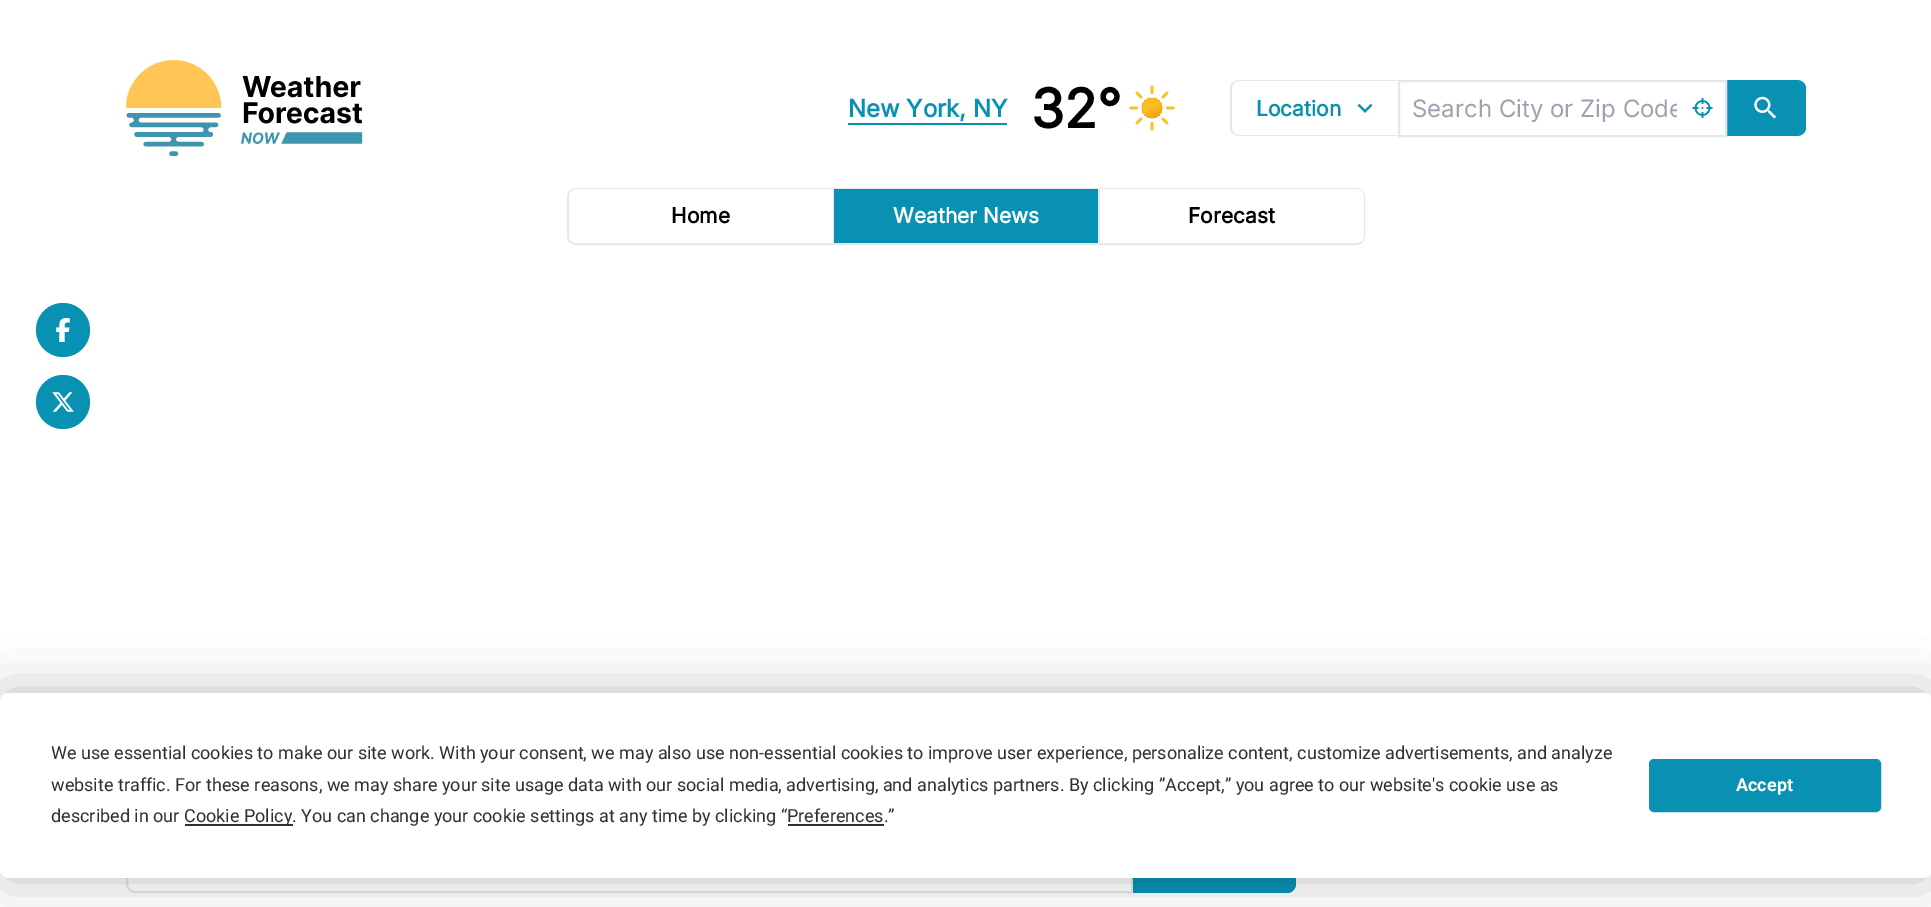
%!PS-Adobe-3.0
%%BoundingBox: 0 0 1931 907
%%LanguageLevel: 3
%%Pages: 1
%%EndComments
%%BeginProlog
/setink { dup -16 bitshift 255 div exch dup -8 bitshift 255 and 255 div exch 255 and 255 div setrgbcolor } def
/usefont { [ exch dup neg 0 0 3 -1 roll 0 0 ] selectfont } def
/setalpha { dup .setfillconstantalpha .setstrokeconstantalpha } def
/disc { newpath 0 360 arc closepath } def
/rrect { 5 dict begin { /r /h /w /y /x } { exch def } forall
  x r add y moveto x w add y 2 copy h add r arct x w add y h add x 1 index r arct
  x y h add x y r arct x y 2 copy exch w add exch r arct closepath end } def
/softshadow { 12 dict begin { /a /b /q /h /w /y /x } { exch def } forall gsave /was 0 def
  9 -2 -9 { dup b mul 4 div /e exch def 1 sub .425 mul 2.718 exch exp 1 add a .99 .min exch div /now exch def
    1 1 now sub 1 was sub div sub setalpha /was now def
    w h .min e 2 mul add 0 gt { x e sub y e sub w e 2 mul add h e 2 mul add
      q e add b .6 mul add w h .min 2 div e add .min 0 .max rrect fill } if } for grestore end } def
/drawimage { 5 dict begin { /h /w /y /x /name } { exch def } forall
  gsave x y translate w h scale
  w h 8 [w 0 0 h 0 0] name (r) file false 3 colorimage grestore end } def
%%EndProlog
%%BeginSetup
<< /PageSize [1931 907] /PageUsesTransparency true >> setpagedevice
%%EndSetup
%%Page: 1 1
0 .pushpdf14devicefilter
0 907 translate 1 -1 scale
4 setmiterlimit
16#FFFFFF setink
0 0 1931 907 rectfill
(img1.raw) 126 60 237 97 drawimage
/Inter-Bold 24 usefont
16#0891B2 setink
848 117 moveto (New York, NY) show
848 123 159 2 rectfill
/Inter-Bold 54 usefont
16#000000 setink
1031 128 moveto (32°) show
gsave 1152 108 10 disc clip newpath
<< /ShadingType 2 /ColorSpace /DeviceRGB /Coords [1147 99 1157 117] /Extend [true true] /Function << /FunctionType 3 /Domain [0 1] /Functions [<< /FunctionType 2 /Domain [0 1] /C0 [0.984 0.749 0.141] /C1 [0.984 0.749 0.141] /N 1 >> << /FunctionType 2 /Domain [0 1] /C0 [0.984 0.749 0.141] /C1 [0.961 0.62 0.043] /N 1 >>] /Bounds [0.45] /Encode [0 1 0 1] >> >> shfill grestore
16#F8AF18 setink
0.5 setlinewidth
1152 108 10 disc stroke
16#FBBF24 setink
2.8 setlinewidth
1 setlinecap
1152 92.5 moveto 1152 87 lineto 1152 129 moveto 1152 123.5 lineto 1163 97 moveto 1167 93 lineto 1137 123 moveto 1141 119 lineto 1141 97 moveto 1137 93 lineto 1167 123 moveto 1163 119 lineto 1136.5 108 moveto 1131 108 lineto 1173 108 moveto 1167.5 108 lineto stroke
16#E5E7EB setink
1239 80 moveto 1398 80 lineto 1398 136 lineto 1239 136 lineto 1234 136 1230 132 1230 128 curveto 1230 88 lineto 1230 84 1234 80 1239 80 curveto closepath 1239 81 moveto 1398 81 lineto 1398 135 lineto 1239 135 lineto 1235 135 1232 132 1232 128 curveto 1232 88 lineto 1232 84 1235 81 1239 81 curveto closepath eofill
/Inter-Bold 21 usefont
16#0891B2 setink
1256 116 moveto (Location) show
(img2.raw) 1357 103 16 10 drawimage
1727 81 moveto 1797 81 lineto 1801.5 81 1805 84.5 1805 89 curveto 1805 127 lineto 1805 131.5 1801.5 135 1797 135 curveto 1727 135 lineto closepath fill
1726 80 moveto 1797 80 lineto 1802 80 1806 84 1806 88 curveto 1806 128 lineto 1806 132 1802 136 1797 136 curveto 1726 136 lineto closepath 1726 81 moveto 1797 81 lineto 1801 81 1804 84 1804 88 curveto 1804 128 lineto 1804 132 1801 135 1797 135 curveto 1726 135 lineto closepath eofill
16#E5E7EB setink
2 setlinewidth
0 setlinecap
1399 81 327 55 rectstroke
gsave
1412 93 265 30 rectclip
/Inter-Regular 24 usefont
16#9CA3AF setink
1412 117 moveto (Search City or Zip Code) show
grestore
(img3.raw) 1692 98 21 20 drawimage
(img4.raw) 1754 96 22 23 drawimage
568 189 796 55 8 rrect stroke
16#FFFFFF setink
577 189 moveto 833 189 lineto 833 243 lineto 577 243 lineto 572.5 243 569 239.5 569 235 curveto 569 197 lineto 569 192.5 572.5 189 577 189 curveto closepath fill
16#000000 setink
671 223 moveto (Home) show
16#E5E7EB setink
833 189 1 54 rectfill
16#0891B2 setink
834 189 264 54 rectfill
16#FFFFFF setink
893 223 moveto (Weather News) show
16#E5E7EB setink
1098 189 2 54 rectfill
16#FFFFFF setink
1100 189 moveto 1356 189 lineto 1360.5 189 1364 192.5 1364 197 curveto 1364 235 lineto 1364 239.5 1360.5 243 1356 243 curveto 1100 243 lineto closepath fill
16#000000 setink
1188 223 moveto (Forecast) show
16#0891B2 setink
63 330 27 disc fill
(img5.raw) 56 318 14 24 drawimage
63 402 27 disc fill
(img6.raw) 52 392 22 20 drawimage
16#E5E7EB setink
135 834 moveto 1132 834 lineto 1132 892 lineto 135 892 lineto 130.5 892 127 888.5 127 884 curveto 127 842 lineto 127 837.5 130.5 834 135 834 curveto closepath stroke
16#0891B2 setink
1133 833 moveto 1287 833 lineto 1292 833 1296 837 1296 842 curveto 1296 884 lineto 1296 889 1292 893 1287 893 curveto 1133 893 lineto closepath fill
16#000000 setink
0 693 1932 185 8 26 0.25 softshadow
16#FFFFFF setink
0 693 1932 185 8 rrect fill
/Roboto-Regular 18 usefont
16#303030 setink
[
    [(We use essential cookies to make our site work. With your consent, we may also use non-essential cookies to improve user experience, personalize content, customize advertisements, and analyze) 51 759]
    [(website traffic. For these reasons, we may share your site usage data with our social media, advertising, and analytics partners. By clicking ”Accept,” you agree to our website's cookie use as) 51 791]
    [(described in our) 51 822]
] { aload pop moveto show } forall
185 824 108 2 rectfill
184 822 moveto (Cookie Policy. You can change your cookie settings at any time by clicking “Preferences.”) show
788 824 96 2 rectfill
16#0891B2 setink
1650 760 230 51 4 rrect gsave fill grestore
stroke
/Roboto-Bold 18 usefont
16#FFFFFF setink
1736 791 moveto (Accept) show
.poppdf14devicefilter showpage
%%EOF
